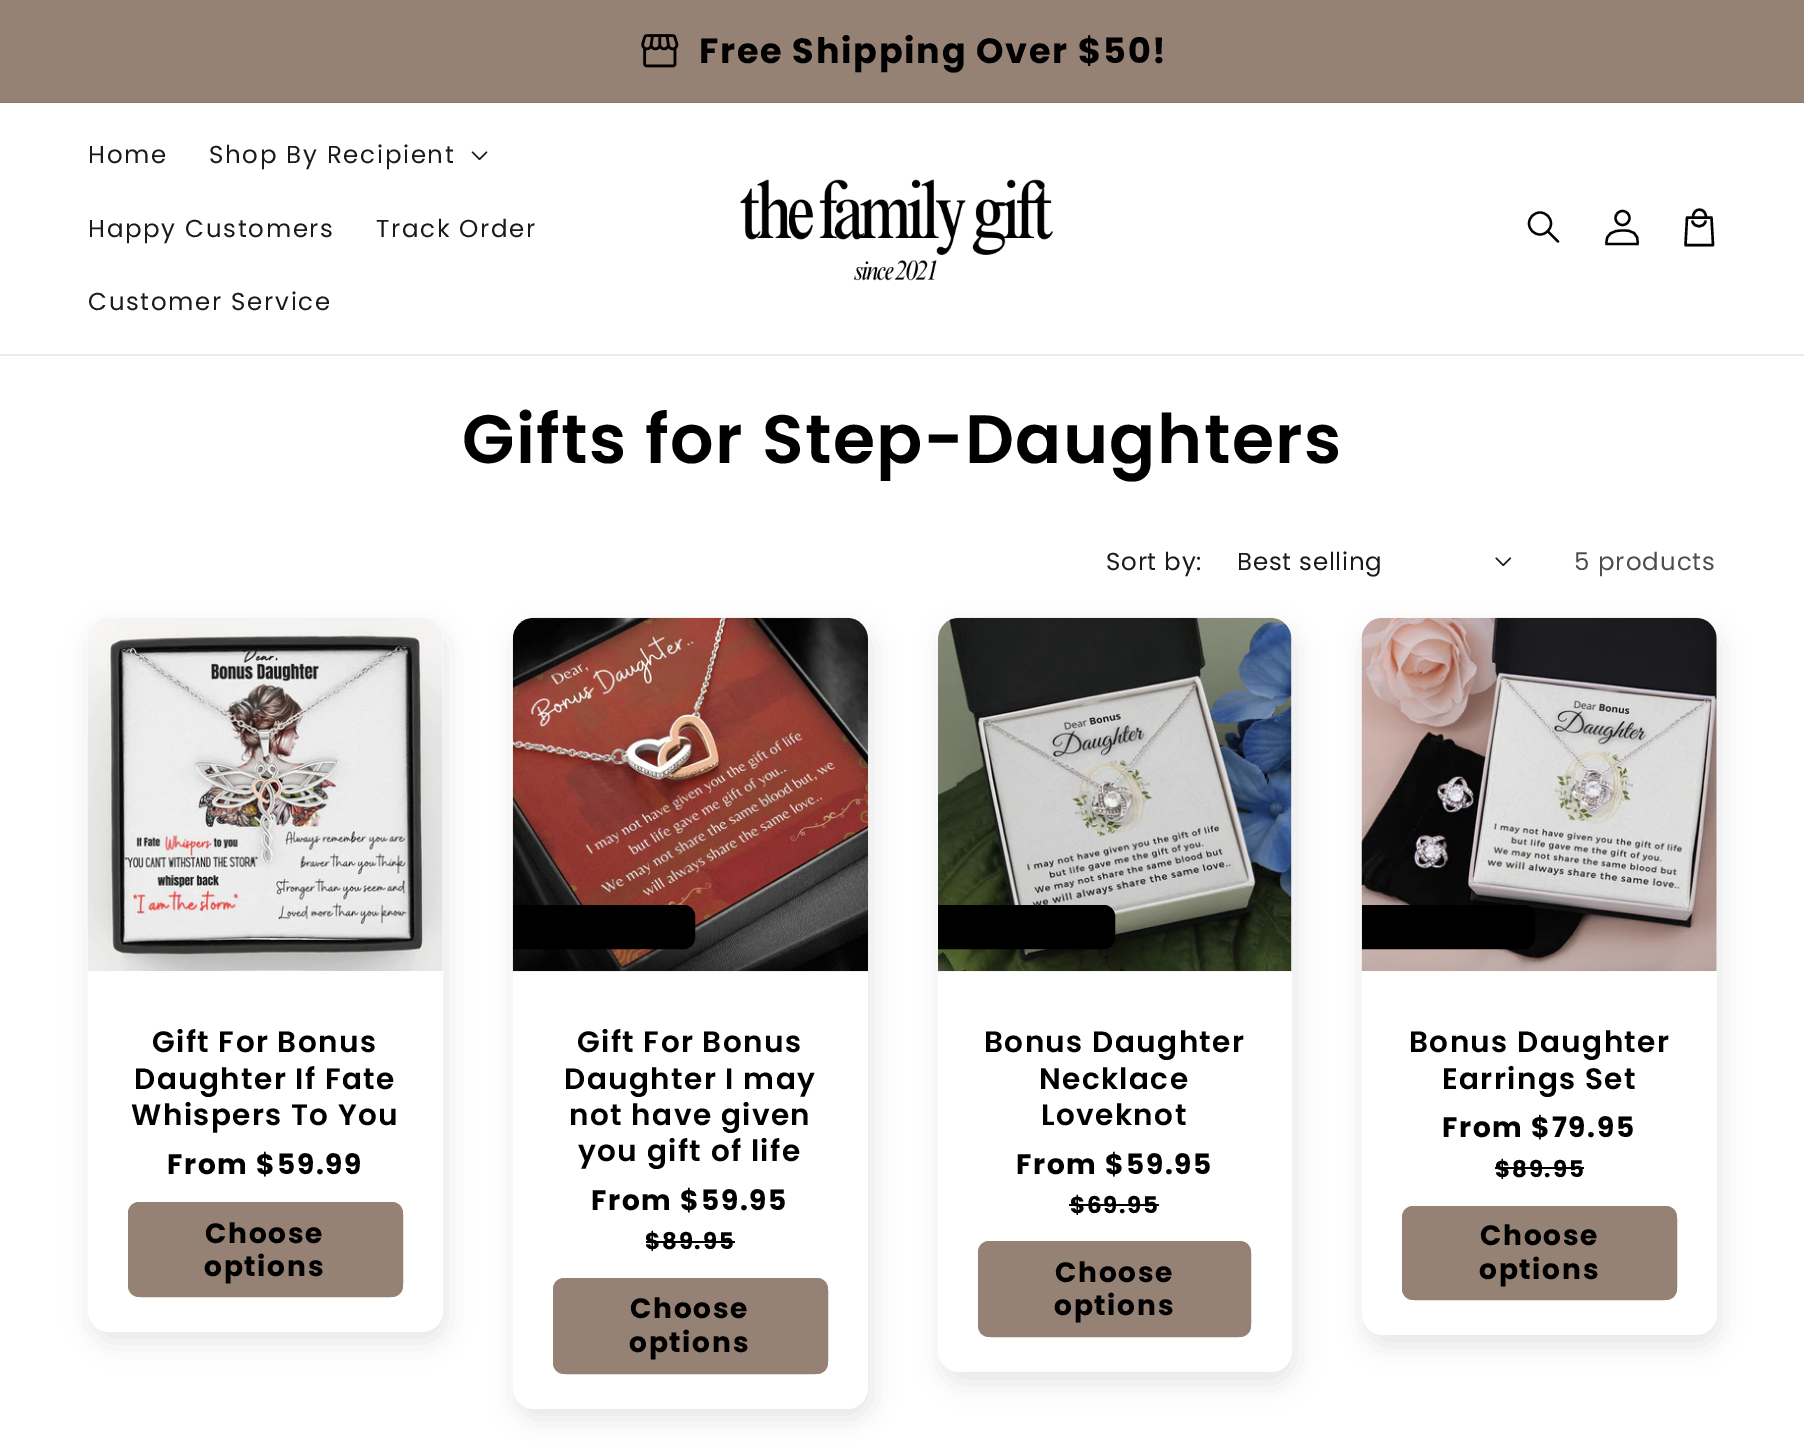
%!PS-Adobe-3.0
%%BoundingBox: 0 0 1804 1441
%%LanguageLevel: 3
%%Pages: 1
%%EndComments
%%BeginProlog
/setink { dup -16 bitshift 255 div exch dup -8 bitshift 255 and 255 div exch 255 and 255 div setrgbcolor } def
/usefont { [ exch dup neg 0 0 3 -1 roll 0 0 ] selectfont } def
/setalpha { dup .setfillconstantalpha .setstrokeconstantalpha } def
/disc { newpath 0 360 arc closepath } def
/rrect { 5 dict begin { /r /h /w /y /x } { exch def } forall
  x r add y moveto x w add y 2 copy h add r arct x w add y h add x 1 index r arct
  x y h add x y r arct x y 2 copy exch w add exch r arct closepath end } def
/softshadow { 12 dict begin { /a /b /q /h /w /y /x } { exch def } forall gsave /was 0 def
  9 -2 -9 { dup b mul 4 div /e exch def 1 sub .425 mul 2.718 exch exp 1 add a .99 .min exch div /now exch def
    1 1 now sub 1 was sub div sub setalpha /was now def
    w h .min e 2 mul add 0 gt { x e sub y e sub w e 2 mul add h e 2 mul add
      q e add b .6 mul add w h .min 2 div e add .min 0 .max rrect fill } if } for grestore end } def
/drawimage { 5 dict begin { /h /w /y /x /name } { exch def } forall
  gsave x y translate w h scale
  w h 8 [w 0 0 h 0 0] name (r) file false 3 colorimage grestore end } def
%%EndProlog
%%BeginSetup
<< /PageSize [1804 1441] /PageUsesTransparency true >> setpagedevice
%%EndSetup
%%Page: 1 1
0 .pushpdf14devicefilter
0 1441 translate 1 -1 scale
4 setmiterlimit
16#FFFFFF setink
0 0 1804 1441 rectfill
16#968275 setink
0 0 1804 102 rectfill
16#8A786C setink
0 102 1804 1 rectfill
(img1.raw) 641 34 38 34 drawimage
/Poppins-Bold 35 usefont
16#000000 setink
699 63 moveto 1.75 0 (Free Shipping Over $50!) ashow
16#EBEBEB setink
0 354 1804 2 rectfill
/Poppins-Regular 24.5 usefont
16#1A1A1A setink
88 163 moveto 1.7 0 (Home) ashow
209 163 moveto 1.7 0 (Shop By Recipient) ashow
(img2.raw) 471 151 17 10 drawimage
88 237 moveto 1.7 0 (Happy Customers) ashow
376 237 moveto 1.7 0 (Track Order) ashow
88 310 moveto 1.7 0 (Customer Service) ashow
(img3.raw) 740 179 314 102 drawimage
16#000000 setink
2.2 setlinewidth
1540 223.5 11 disc stroke
1 setlinecap
1 setlinejoin
1558 241.5 moveto 1547.5 231 lineto stroke
2.3 setlinewidth
0 setlinecap
0 setlinejoin
1622.5 218 7 disc stroke
1606.5 244 moveto 1637.5 244 lineto 1639 233 1631.5 230 1622.5 230.5 curveto 1613 230.5 1605.5 233.5 1606.5 244 curveto closepath stroke
2.4 setlinewidth
1 setlinecap
1 setlinejoin
1687 217.5 moveto 1711.5 217.5 lineto 1713 245 lineto 1685.5 245 lineto closepath 1693 217.5 moveto 1693 207 1706 207 1706 217.5 curveto 1692.5 221.5 moveto 1694 228 1704 228 1705.5 221.5 curveto stroke
/Poppins-SemiBold 68.25 usefont
462 463 moveto 1.4 0 (Gifts for Step-Daughters) ashow
/Poppins-Regular 24.5 usefont
16#1A1A1A setink
1106 570 moveto 0.75 0 (Sort by:) ashow
1237 570 moveto 0.75 0 (Best selling) ashow
(img4.raw) 1495 557 17 10 drawimage
16#4D4D4D setink
1574 570 moveto 1 0 (5 products) ashow
16#000000 setink
91 628 355 714 21 13 0.1 softshadow
16#FFFFFF setink
88 618 355 714 21 rrect fill
(img5.raw) 87 618 356 353 drawimage
/Poppins-SemiBold 29.5 usefont
16#000000 setink
152 1052 moveto 1.4 0 (Gift For Bonus) ashow
134 1089 moveto 1.4 0 (Daughter If Fate) ashow
131 1125 moveto 1.4 0 (Whispers To You) ashow
/Poppins-Bold 28 usefont
167 1174 moveto 1.75 0 (From $59.99) ashow
16#968275 setink
4 setlinewidth
0 setlinecap
0 setlinejoin
130 1204 271 91 12 rrect stroke
128 1202 275 95 11 rrect fill
16#000000 setink
205 1243 moveto 1.75 0 (Choose) ashow
204 1276 moveto 1.75 0 (options) ashow
516 628 356 791 21 13 0.1 softshadow
16#FFFFFF setink
513 618 355 791 21 rrect fill
(img6.raw) 512 617 356 355 drawimage
16#000000 setink
514 906 moveto 684 906 lineto 689.5 906 694 910.5 694 916 curveto 694 938 lineto 694 943.5 689.5 948 684 948 curveto 514 948 lineto closepath gsave fill grestore
2 setlinewidth
stroke
/Poppins-SemiBold 29.5 usefont
577 1052 moveto 1.4 0 (Gift For Bonus) ashow
564 1089 moveto 1.4 0 (Daughter I may) ashow
569 1125 moveto 1.4 0 (not have given) ashow
578 1161 moveto 1.4 0 (you gift of life) ashow
/Poppins-Bold 28 usefont
591 1210 moveto 1.75 0 (From $59.95) ashow
/Poppins-Bold 23 usefont
645 1249 moveto 1.75 0 ($89.95) ashow
646 1241 89 2 rectfill
16#968275 setink
4 setlinewidth
555 1280 271 92 12 rrect stroke
553 1278 275 96 11 rrect fill
/Poppins-Bold 28 usefont
16#000000 setink
630 1318 moveto 1.75 0 (Choose) ashow
629 1352 moveto 1.75 0 (options) ashow
942 628 353 755 21 13 0.1 softshadow
16#FFFFFF setink
938 618 354 754 21 rrect fill
(img7.raw) 938 617 354 355 drawimage
16#000000 setink
939 906 moveto 1104 906 lineto 1109.5 906 1114 910.5 1114 916 curveto 1114 938 lineto 1114 943.5 1109.5 948 1104 948 curveto 939 948 lineto closepath gsave fill grestore
2 setlinewidth
stroke
/Poppins-SemiBold 29.5 usefont
984 1052 moveto 1.4 0 (Bonus Daughter) ashow
1039 1089 moveto 1.4 0 (Necklace) ashow
1041 1125 moveto 1.4 0 (Loveknot) ashow
/Poppins-Bold 28 usefont
1016 1174 moveto 1.75 0 (From $59.95) ashow
/Poppins-Bold 23 usefont
1070 1213 moveto 1.75 0 ($69.95) ashow
1069 1204 90 2 rectfill
16#968275 setink
4 setlinewidth
980 1243 269 92 12 rrect stroke
978 1241 273 96 11 rrect fill
/Poppins-Bold 28 usefont
16#000000 setink
1055 1282 moveto 1.75 0 (Choose) ashow
1054 1315 moveto 1.75 0 (options) ashow
1365 628 355 718 21 13 0.1 softshadow
16#FFFFFF setink
1362 618 355 717 21 rrect fill
(img8.raw) 1361 617 356 355 drawimage
16#000000 setink
1363 906 moveto 1524 906 lineto 1529.5 906 1534 910.5 1534 916 curveto 1534 938 lineto 1534 943.5 1529.5 948 1524 948 curveto 1363 948 lineto closepath gsave fill grestore
2 setlinewidth
stroke
/Poppins-SemiBold 29.5 usefont
1409 1052 moveto 1.4 0 (Bonus Daughter) ashow
1442 1089 moveto 1.4 0 (Earrings Set) ashow
/Poppins-Bold 28 usefont
1442 1137 moveto 1.75 0 (From $79.95) ashow
/Poppins-Bold 23 usefont
1495 1177 moveto 1.75 0 ($89.95) ashow
1495 1167 89 2 rectfill
16#968275 setink
4 setlinewidth
1404 1208 271 90 12 rrect stroke
1402 1206 275 94 11 rrect fill
/Poppins-Bold 28 usefont
16#000000 setink
1480 1245 moveto 1.75 0 (Choose) ashow
1479 1279 moveto 1.75 0 (options) ashow
.poppdf14devicefilter showpage
%%EOF
